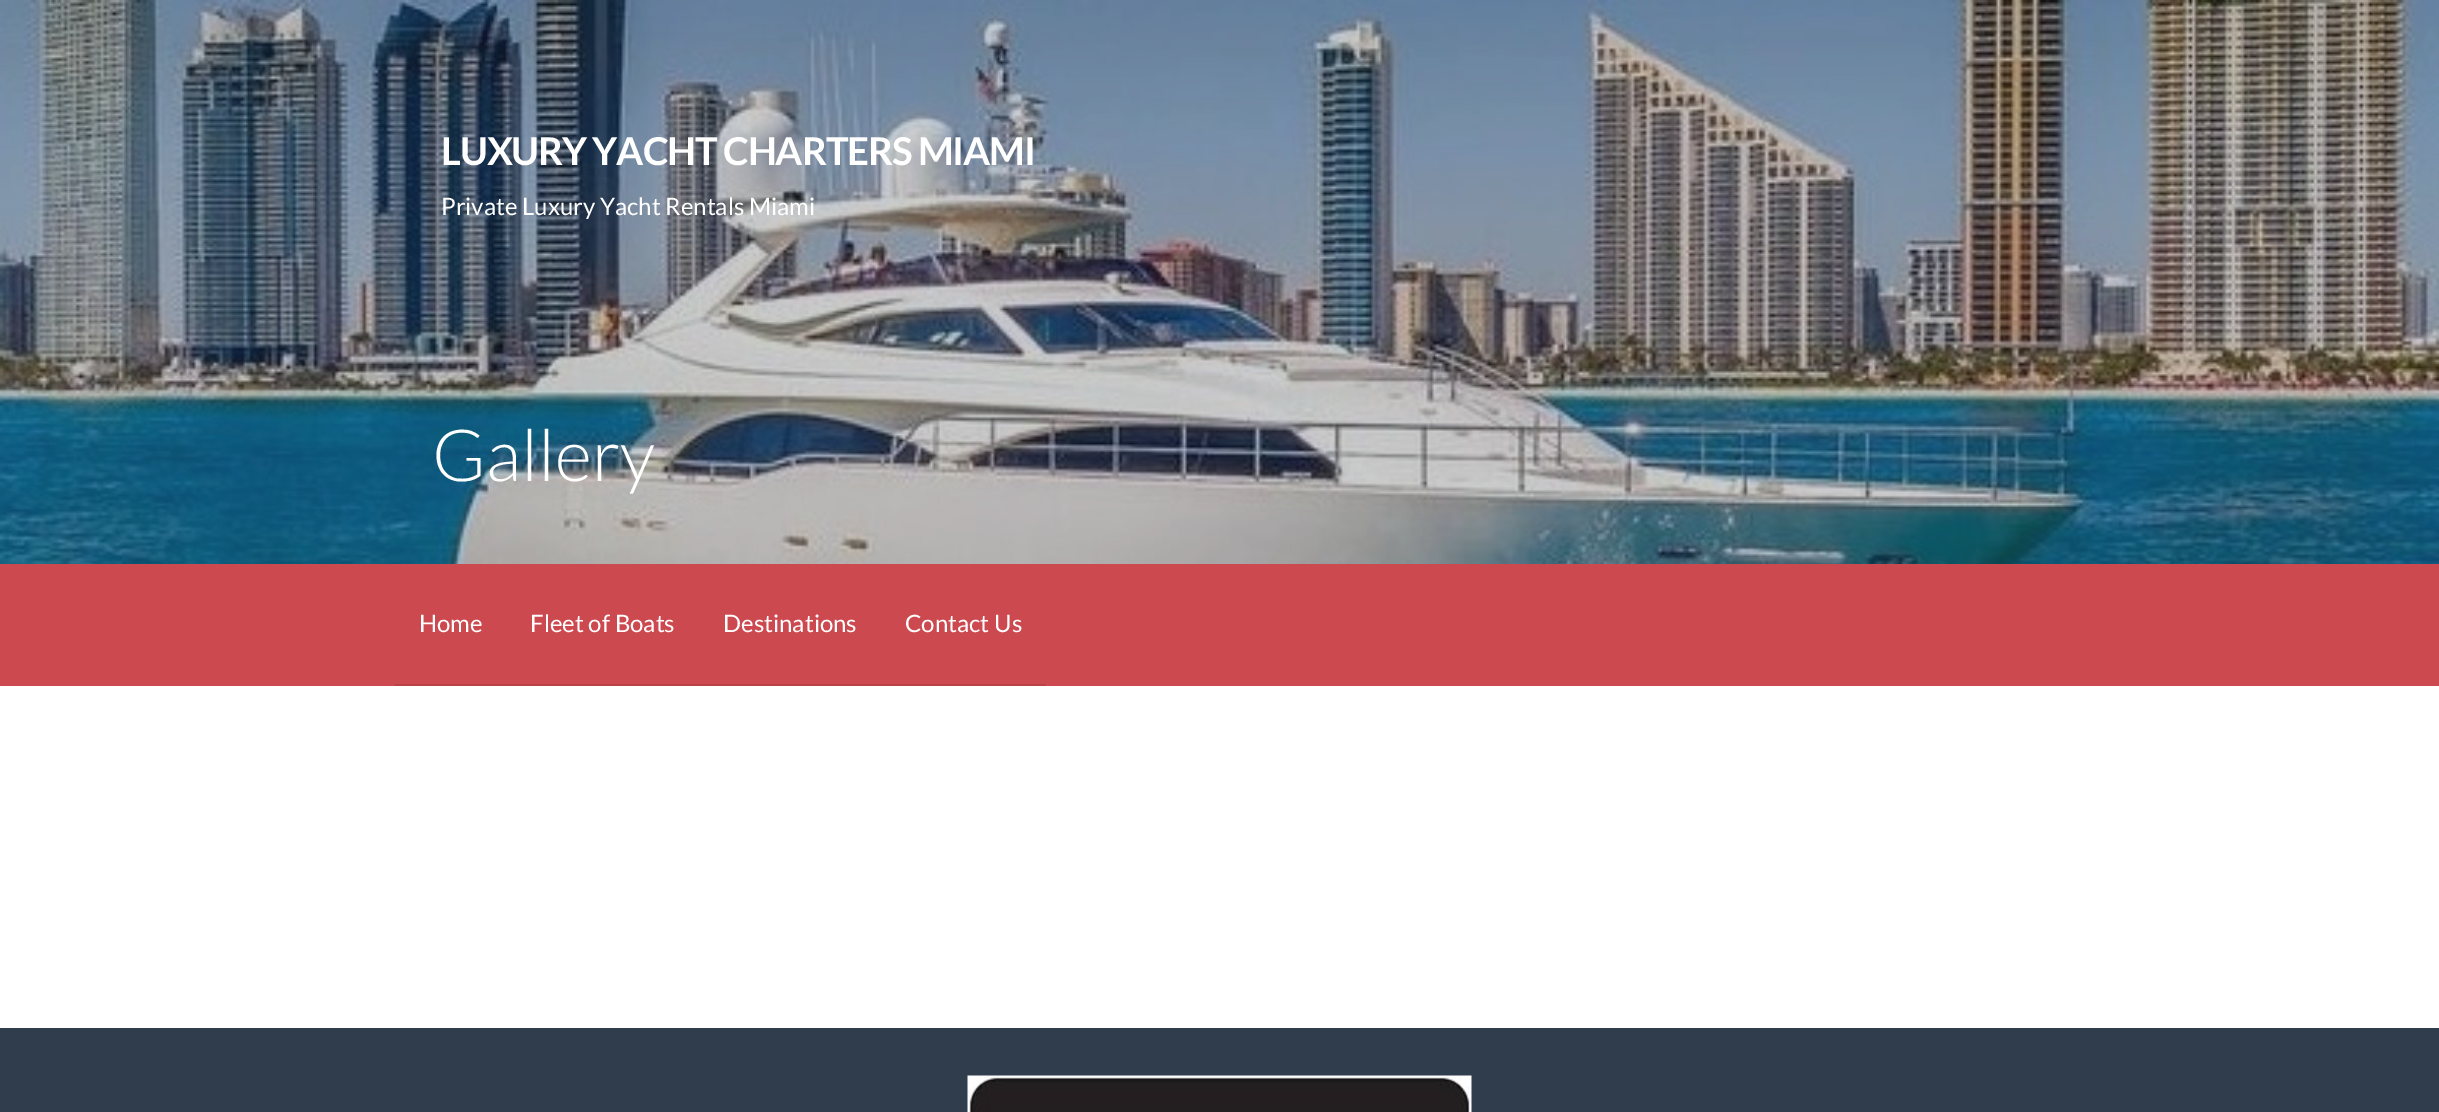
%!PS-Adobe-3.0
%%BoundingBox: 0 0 2439 1112
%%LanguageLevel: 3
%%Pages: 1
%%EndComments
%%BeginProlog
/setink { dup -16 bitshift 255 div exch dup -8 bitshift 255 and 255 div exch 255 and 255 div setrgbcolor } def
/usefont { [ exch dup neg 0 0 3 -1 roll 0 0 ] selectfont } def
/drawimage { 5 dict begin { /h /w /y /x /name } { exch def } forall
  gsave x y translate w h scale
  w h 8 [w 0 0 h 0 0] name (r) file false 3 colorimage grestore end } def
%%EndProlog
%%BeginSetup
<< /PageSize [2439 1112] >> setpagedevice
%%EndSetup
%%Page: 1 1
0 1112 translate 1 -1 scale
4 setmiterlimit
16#FFFFFF setink
0 0 2439 1112 rectfill
(img1.raw) 0 0 2439 564 drawimage
/Lato-Bold 38.4 usefont
441 165 moveto -1.15 0 (LUXURY YACHT CHARTERS MIAMI) ashow
/Lato-Regular 24 usefont
441 215 moveto (Private Luxury Yacht Rentals Miami) show
/Lato-Light 72 usefont
432 481 moveto (Gallery) show
16#CC494F setink
0 564 2439 122 rectfill
16#B84247 setink
395 684 651 2 rectfill
/Lato-Regular 24 usefont
16#FFFFFF setink
[
    [(Home) 419 632]
    [(Fleet of Boats) 530 632]
    [(Destinations) 723 632]
    [(Contact Us) 905 632]
] { aload pop moveto show } forall
16#303D4C setink
0 1028 2439 84 rectfill
(img2.raw) 967 1075 505 37 drawimage
showpage
%%EOF
